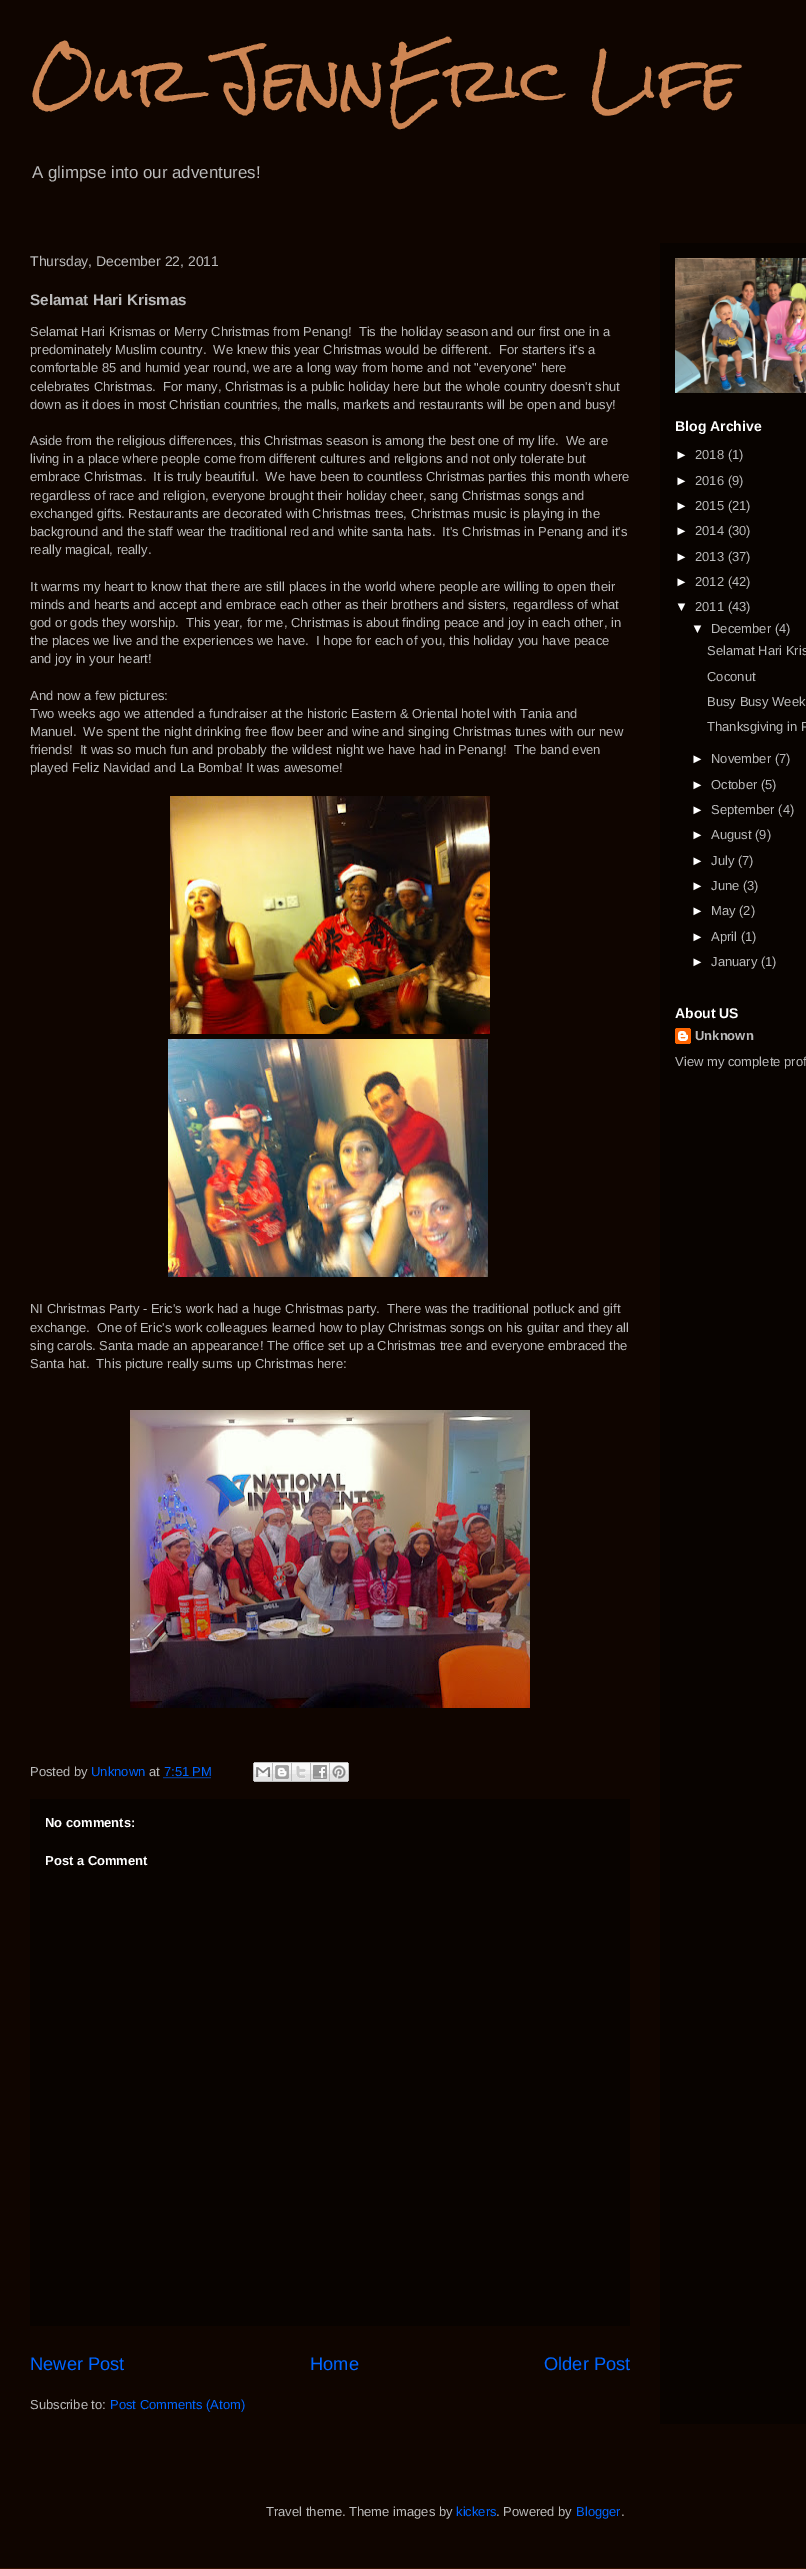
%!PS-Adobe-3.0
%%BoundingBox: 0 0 806 2569
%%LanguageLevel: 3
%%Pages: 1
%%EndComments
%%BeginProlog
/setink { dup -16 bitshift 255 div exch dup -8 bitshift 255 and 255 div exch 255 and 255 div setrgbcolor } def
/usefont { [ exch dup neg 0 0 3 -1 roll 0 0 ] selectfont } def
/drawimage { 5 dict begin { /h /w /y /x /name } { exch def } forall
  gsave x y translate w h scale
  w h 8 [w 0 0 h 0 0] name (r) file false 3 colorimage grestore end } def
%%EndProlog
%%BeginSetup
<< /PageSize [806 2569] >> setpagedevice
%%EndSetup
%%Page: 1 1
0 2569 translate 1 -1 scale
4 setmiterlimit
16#331201 setink
0 0 806 2569 rectfill
16#0F0500 setink
0 0 806 2568 rectfill
/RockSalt-Regular 60 usefont
16#CD8553 setink
30 104 moveto (Our JennEric Life) show
/LiberationSans-Regular 16.9 usefont
16#BBBBBB setink
32 178 moveto (A glimpse into our adventures!) show
16#080300 setink
660 243 146 2181 rectfill
/LiberationSans-Regular 14 usefont
16#BBBBBB setink
30 266 moveto (Thursday, December 22, 2011) show
/LiberationSans-Bold 15.25 usefont
30 305 moveto (Selamat Hari Krismas) show
/LiberationSans-Regular 13 usefont
[
    [(Selamat Hari Krismas or Merry Christmas from Penang!  Tis the holiday season and our first one in a) 30 336]
    [(predominately Muslim country.  We knew this year Christmas would be different.  For starters it's a) 30 354]
    [(comfortable 85 and humid year round, we are a long way from home and not "everyone" here) 30 372]
    [(celebrates Christmas.  For many, Christmas is a public holiday here but the whole country doesn't shut) 30 391]
    [(down as it does in most Christian countries, the malls, markets and restaurants will be open and busy!) 30 409]
    [(Aside from the religious differences, this Christmas season is among the best one of my life.  We are) 30 445]
    [(living in a place where people come from different cultures and religions and not only tolerate but) 30 463]
    [(embrace Christmas.  It is truly beautiful.  We have been to countless Christmas parties this month where) 30 481]
    [(regardless of race and religion, everyone brought their holiday cheer, sang Christmas songs and) 30 500]
    [(exchanged gifts. Restaurants are decorated with Christmas trees, Christmas music is playing in the) 30 518]
    [(background and the staff wear the traditional red and white santa hats.  It's Christmas in Penang and it's) 30 536]
    [(really magical, really.) 30 554]
    [(It warms my heart to know that there are still places in the world where people are willing to open their) 30 591]
    [(minds and hearts and accept and embrace each other as their brothers and sisters, regardless of what) 30 609]
    [(god or gods they worship.  This year, for me, Christmas is about finding peace and joy in each other, in) 30 627]
    [(the places we live and the experiences we have.  I hope for each of you, this holiday you have peace) 30 645]
    [(and joy in your heart!) 30 663]
    [(And now a few pictures:) 30 700]
    [(Two weeks ago we attended a fundraiser at the historic Eastern & Oriental hotel with Tania and) 30 718]
    [(Manuel.  We spent the night drinking free flow beer and wine and singing Christmas tunes with our new) 30 736]
    [(friends!  It was so much fun and probably the wildest night we have had in Penang!  The band even) 30 754]
    [(played Feliz Navidad and La Bomba! It was awesome!) 30 772]
] { aload pop moveto show } forall
(img1.raw) 170 796 320 238 drawimage
(img2.raw) 168 1039 320 238 drawimage
[
    [(NI Christmas Party - Eric's work had a huge Christmas party.  There was the traditional potluck and gift) 30 1313]
    [(exchange.  One of Eric's work colleagues learned how to play Christmas songs on his guitar and they all) 30 1332]
    [(sing carols. Santa made an appearance! The office set up a Christmas tree and everyone embraced the) 30 1350]
    [(Santa hat.  This picture really sums up Christmas here:) 30 1368]
] { aload pop moveto show } forall
(img3.raw) 130 1410 400 298 drawimage
30 1776 moveto (Posted by) show
16#0065FF setink
91 1776 moveto (Unknown) show
16#BBBBBB setink
149 1776 moveto (at) show
16#0065FF setink
164 1776 moveto (7:51 PM) show
[1 1] 0 setdash
163.5 1777.5 moveto 211 1777.5 lineto stroke
(img4.raw) 253 1762 20 20 drawimage
(img5.raw) 273 1762 19 20 drawimage
(img6.raw) 292 1762 19 20 drawimage
(img7.raw) 311 1762 19 20 drawimage
(img8.raw) 330 1762 19 20 drawimage
16#080300 setink
30 1799 600 527 rectfill
/LiberationSans-Bold 13 usefont
16#FFFFFF setink
45 1827 moveto (No comments:) show
45 1865 moveto (Post a Comment) show
/LiberationSans-Regular 18.25 usefont
16#0065FF setink
[
    [(Newer Post) 30 2370]
    [(Home) 310 2370]
    [(Older Post) 544 2370]
] { aload pop moveto show } forall
/LiberationSans-Regular 13 usefont
16#BBBBBB setink
30 2409 moveto (Subscribe to:) show
16#0065FF setink
110 2409 moveto (Post Comments \(Atom\)) show
(img9.raw) 675 258 131 135 drawimage
/LiberationSans-Bold 14 usefont
16#FFFFFF setink
675 431 moveto (Blog Archive) show
/LiberationSans-Regular 13 usefont
675 459 moveto (►) show
16#BBBBBB setink
695 459 moveto (2018 \(1\)) show
16#FFFFFF setink
675 485 moveto (►) show
16#BBBBBB setink
695 485 moveto (2016 \(9\)) show
16#FFFFFF setink
675 510 moveto (►) show
16#BBBBBB setink
695 510 moveto (2015 \(21\)) show
16#FFFFFF setink
675 535 moveto (►) show
16#BBBBBB setink
695 535 moveto (2014 \(30\)) show
16#FFFFFF setink
675 561 moveto (►) show
16#BBBBBB setink
695 561 moveto (2013 \(37\)) show
16#FFFFFF setink
675 586 moveto (►) show
16#BBBBBB setink
695 586 moveto (2012 \(42\)) show
16#FFFFFF setink
675 611 moveto (▼) show
16#BBBBBB setink
695 611 moveto (2011 \(43\)) show
16#FFFFFF setink
691 633 moveto (▼) show
16#BBBBBB setink
[
    [(December \(4\)) 711 633]
    [(Selamat Hari Kris) 707 655]
    [(Coconut) 707 681]
    [(Busy Busy Week) 707 706]
    [(Thanksgiving in P) 707 731]
] { aload pop moveto show } forall
16#FFFFFF setink
691 763 moveto (►) show
16#BBBBBB setink
711 763 moveto (November \(7\)) show
16#FFFFFF setink
691 789 moveto (►) show
16#BBBBBB setink
711 789 moveto (October \(5\)) show
16#FFFFFF setink
691 814 moveto (►) show
16#BBBBBB setink
711 814 moveto (September \(4\)) show
16#FFFFFF setink
691 839 moveto (►) show
16#BBBBBB setink
711 839 moveto (August \(9\)) show
16#FFFFFF setink
691 865 moveto (►) show
16#BBBBBB setink
711 865 moveto (July \(7\)) show
16#FFFFFF setink
691 890 moveto (►) show
16#BBBBBB setink
711 890 moveto (June \(3\)) show
16#FFFFFF setink
691 915 moveto (►) show
16#BBBBBB setink
711 915 moveto (May \(2\)) show
16#FFFFFF setink
691 941 moveto (►) show
16#BBBBBB setink
711 941 moveto (April \(1\)) show
16#FFFFFF setink
691 966 moveto (►) show
16#BBBBBB setink
711 966 moveto (January \(1\)) show
/LiberationSans-Bold 14 usefont
16#FFFFFF setink
675 1018 moveto (About US) show
(img10.raw) 675 1028 16 16 drawimage
/LiberationSans-Bold 13 usefont
16#BBBBBB setink
695 1040 moveto (Unknown) show
/LiberationSans-Regular 13 usefont
675 1066 moveto (View my complete prof) show
266 2516 moveto (Travel theme. Theme images by) show
16#0065FF setink
456 2516 moveto (kickers) show
16#BBBBBB setink
496 2516 moveto (. Powered by) show
16#0065FF setink
576 2516 moveto (Blogger) show
16#BBBBBB setink
621 2516 moveto (.) show
showpage
%%EOF
